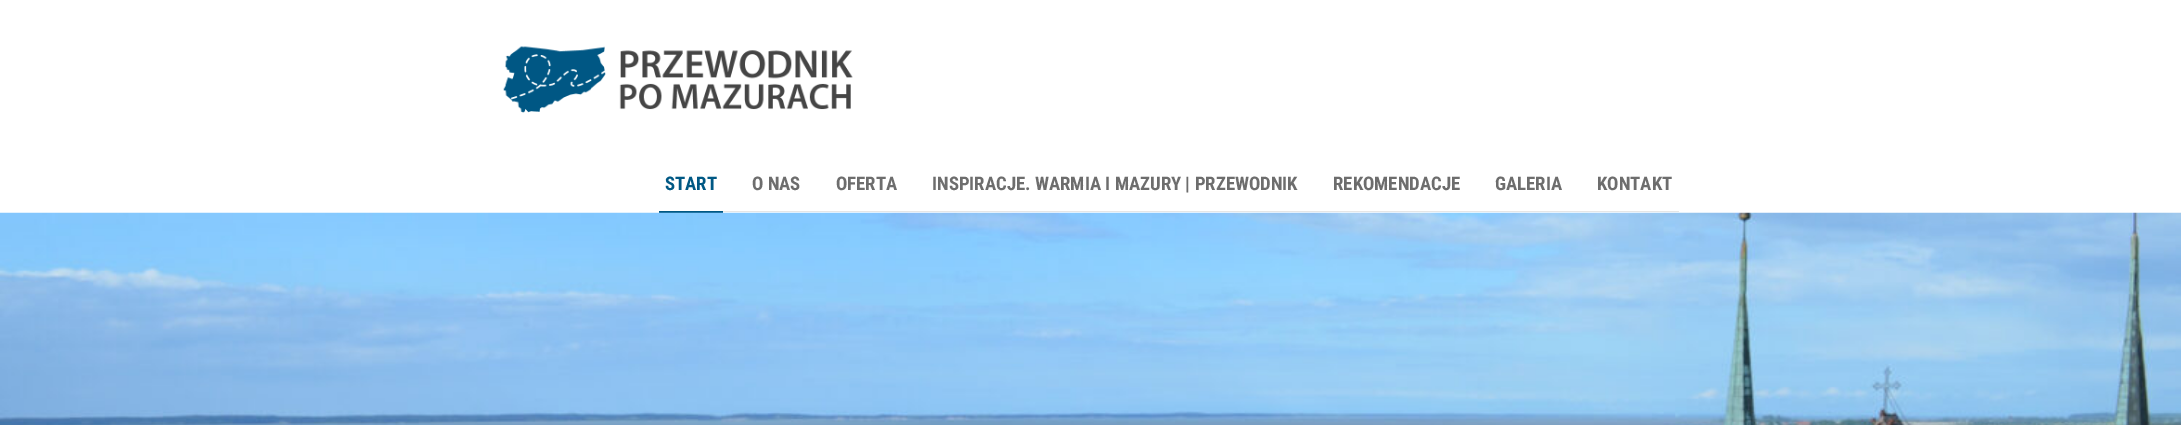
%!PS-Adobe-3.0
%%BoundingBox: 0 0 2181 425
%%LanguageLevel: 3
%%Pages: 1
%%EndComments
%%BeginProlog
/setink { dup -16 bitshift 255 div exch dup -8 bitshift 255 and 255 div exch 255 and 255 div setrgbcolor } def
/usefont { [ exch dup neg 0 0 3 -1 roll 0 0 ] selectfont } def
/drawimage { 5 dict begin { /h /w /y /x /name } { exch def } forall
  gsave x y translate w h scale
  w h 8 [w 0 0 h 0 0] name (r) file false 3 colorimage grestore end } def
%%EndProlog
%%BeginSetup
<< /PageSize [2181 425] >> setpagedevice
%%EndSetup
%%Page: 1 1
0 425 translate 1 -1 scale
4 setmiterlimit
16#FFFFFF setink
0 0 2181 425 rectfill
(img1.raw) 503 46 350 67 drawimage
16#E6E6E6 setink
723 211 956 1 rectfill
/RobotoCondensed-Bold 18.75 usefont
16#005884 setink
665 190 moveto (START) show
16#6D6D6D setink
[
    [(O NAS) 752 190]
    [(OFERTA) 836 190]
    [(INSPIRACJE. WARMIA I MAZURY | PRZEWODNIK) 932 190]
    [(REKOMENDACJE) 1333 190]
    [(GALERIA) 1495 190]
    [(KONTAKT) 1597 190]
] { aload pop moveto show } forall
16#005884 setink
659 211 64 2 rectfill
(img2.raw) 0 212 2181 213 drawimage
showpage
%%EOF
